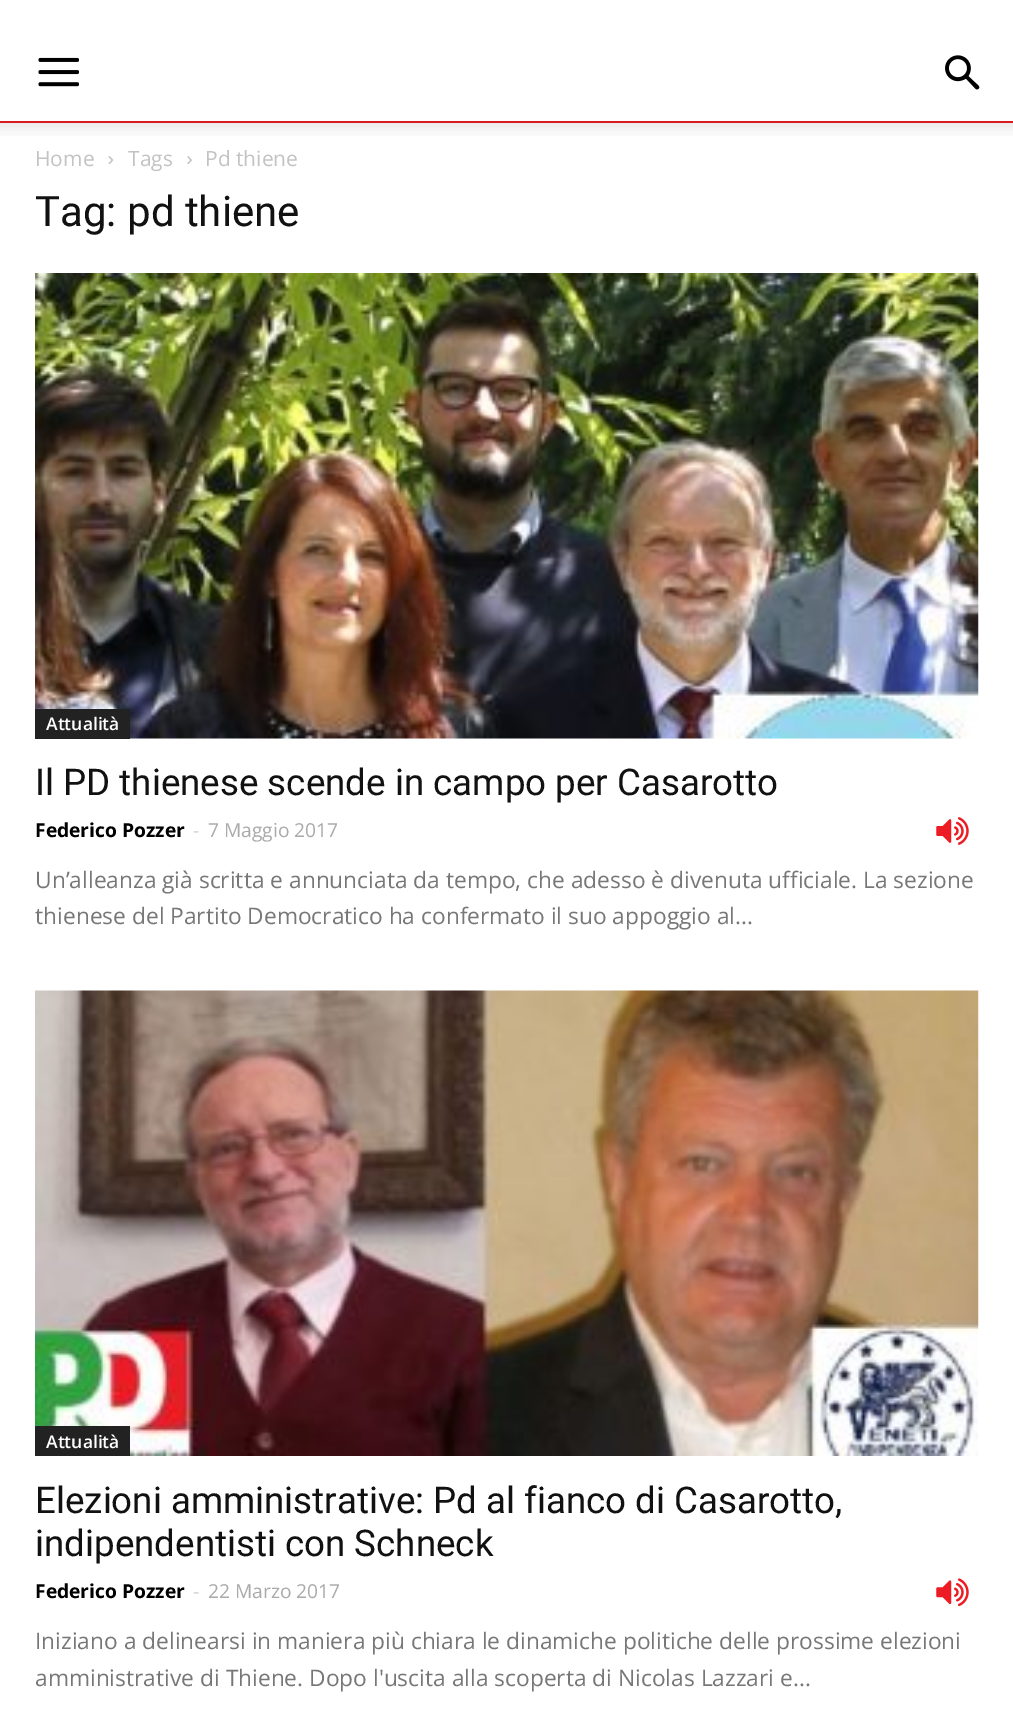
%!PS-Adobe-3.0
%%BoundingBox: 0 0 1013 1721
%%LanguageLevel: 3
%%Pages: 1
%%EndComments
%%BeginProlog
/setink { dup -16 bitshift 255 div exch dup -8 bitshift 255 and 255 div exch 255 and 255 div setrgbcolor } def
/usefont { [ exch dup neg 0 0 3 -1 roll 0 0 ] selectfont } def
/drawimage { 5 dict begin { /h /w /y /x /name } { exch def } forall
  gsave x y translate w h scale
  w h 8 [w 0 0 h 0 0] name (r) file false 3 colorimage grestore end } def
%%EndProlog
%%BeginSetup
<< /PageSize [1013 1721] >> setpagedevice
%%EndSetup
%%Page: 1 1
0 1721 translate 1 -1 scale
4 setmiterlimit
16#FFFFFF setink
0 0 1013 1721 rectfill
16#ED1C24 setink
0 121 1013 2 rectfill
(img1.raw) 38 57 41 30 drawimage
(img2.raw) 945 55 35 35 drawimage
(img3.raw) 0 121 1013 15 drawimage
/OpenSans-Regular 21 usefont
16#C3C3C3 setink
35 166 moveto (Home) show
(img4.raw) 108 156 6 9 drawimage
128 166 moveto (Tags) show
(img5.raw) 187 156 5 8 drawimage
205 166 moveto (Pd thiene) show
/Roboto-Regular 42 usefont
16#111111 setink
35 226 moveto (Tag: pd thiene) show
(img6.raw) 35 273 944 466 drawimage
16#222222 setink
35 709 95 30 rectfill
/OpenSans-SemiBold 17.5 usefont
16#FFFFFF setink
46 730 moveto (Attualità) show
/Roboto-Regular 36.75 usefont
16#111111 setink
35 795 moveto (Il PD thienese scende in campo per Casarotto) show
/OpenSans-Bold 19.25 usefont
16#000000 setink
35 837 moveto (Federico Pozzer) show
/OpenSans-Regular 19.25 usefont
16#CCCCCC setink
193 837 moveto (-) show
16#AAAAAA setink
208 837 moveto (7 Maggio 2017) show
(img7.raw) 936 817 33 28 drawimage
/OpenSans-Regular 22.75 usefont
16#777777 setink
35 888 moveto (Un’alleanza già scritta e annunciata da tempo, che adesso è divenuta ufficiale. La sezione) show
35 924 moveto (thienese del Partito Democratico ha confermato il suo appoggio al...) show
(img8.raw) 35 990 944 466 drawimage
16#222222 setink
35 1426 95 30 rectfill
/OpenSans-SemiBold 17.5 usefont
16#FFFFFF setink
46 1448 moveto (Attualità) show
/Roboto-Regular 36.75 usefont
16#111111 setink
35 1513 moveto (Elezioni amministrative: Pd al fianco di Casarotto,) show
35 1556 moveto (indipendentisti con Schneck) show
/OpenSans-Bold 19.25 usefont
16#000000 setink
35 1598 moveto (Federico Pozzer) show
/OpenSans-Regular 19.25 usefont
16#CCCCCC setink
193 1598 moveto (-) show
16#AAAAAA setink
208 1598 moveto (22 Marzo 2017) show
(img9.raw) 936 1578 33 29 drawimage
/OpenSans-Regular 22.75 usefont
16#777777 setink
35 1649 moveto (Iniziano a delinearsi in maniera più chiara le dinamiche politiche delle prossime elezioni) show
35 1686 moveto (amministrative di Thiene. Dopo l'uscita alla scoperta di Nicolas Lazzari e...) show
showpage
%%EOF
